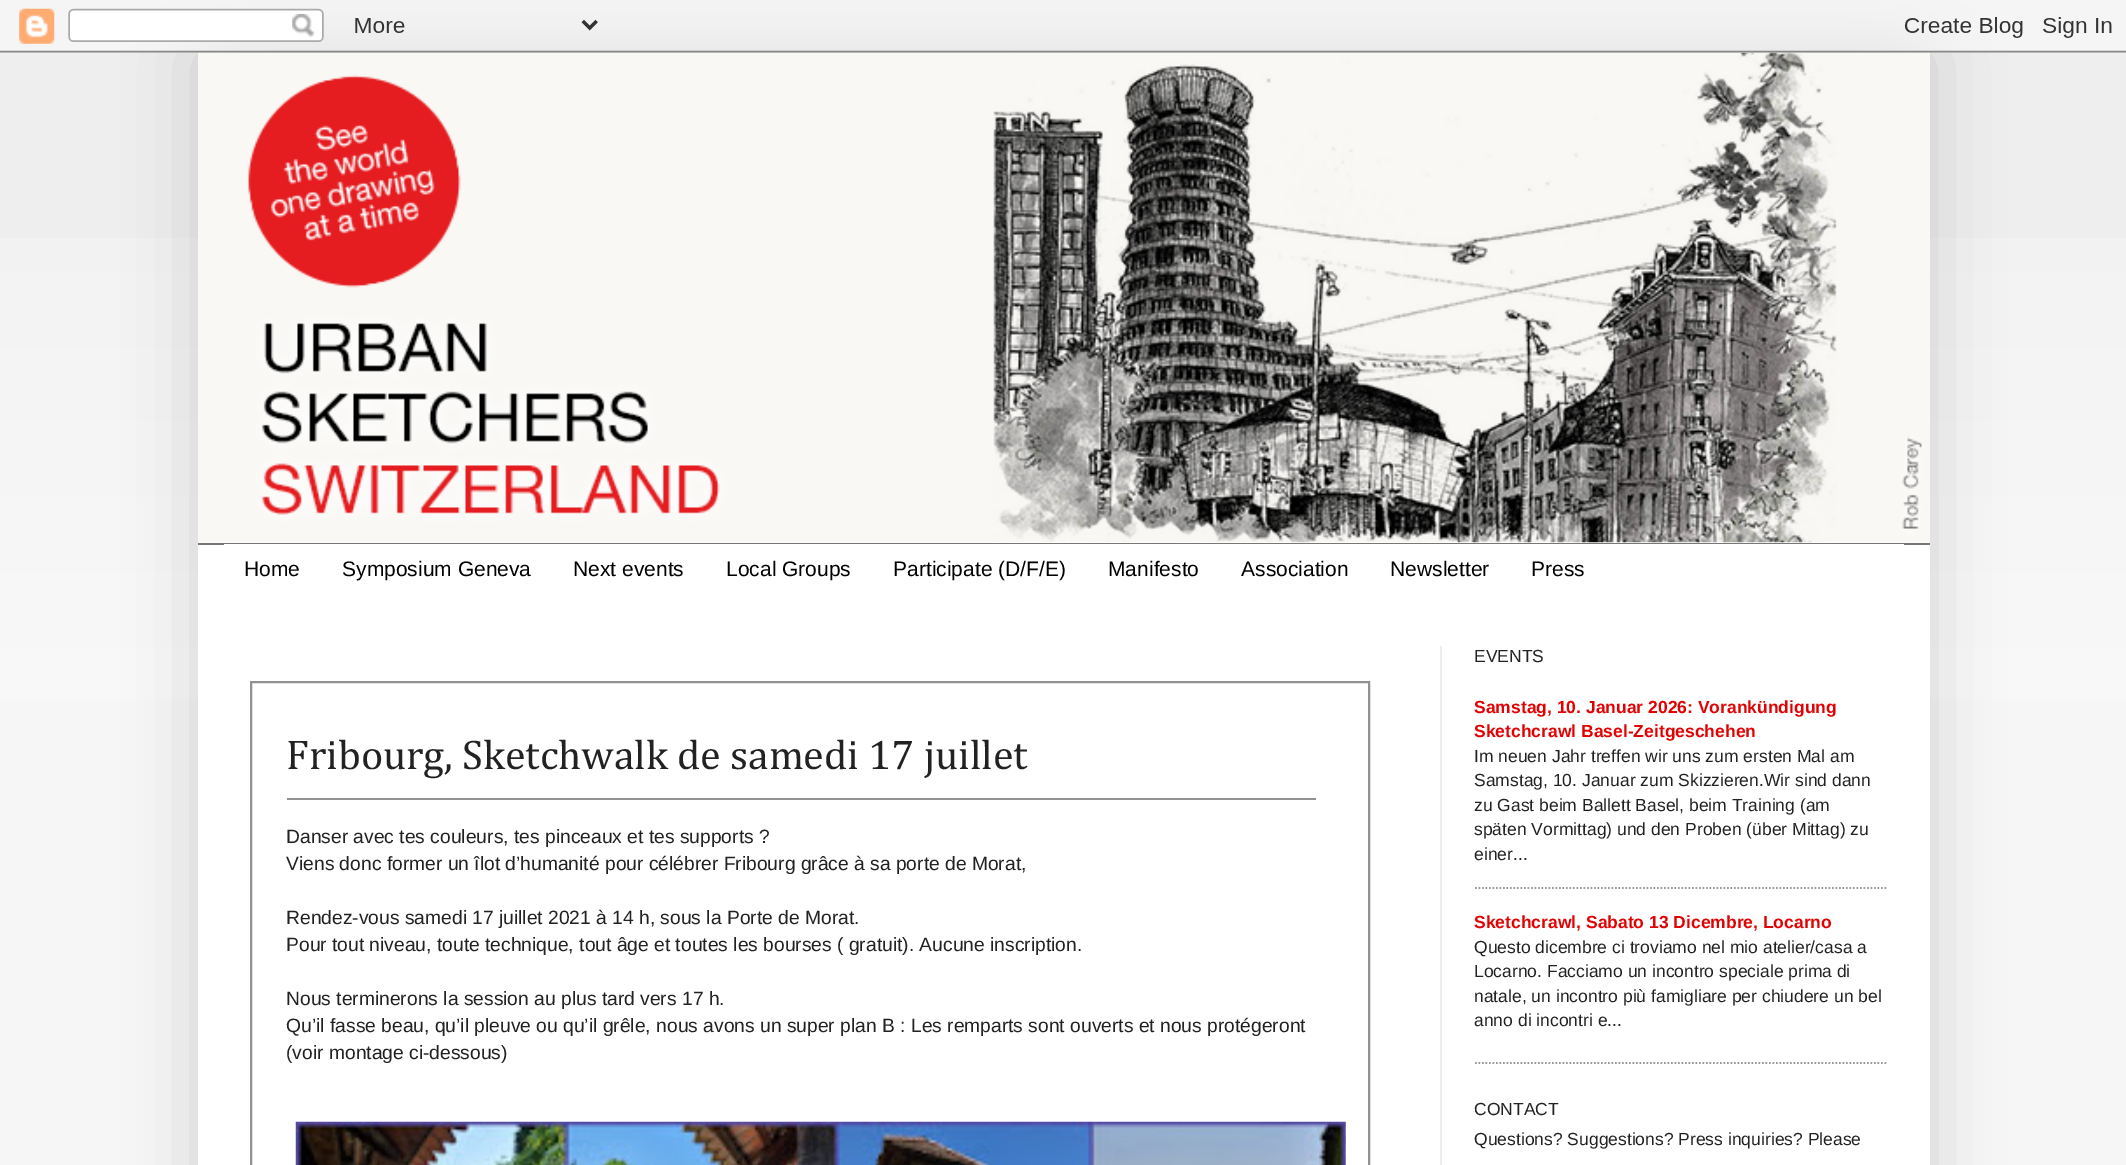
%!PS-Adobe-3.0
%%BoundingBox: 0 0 2126 1165
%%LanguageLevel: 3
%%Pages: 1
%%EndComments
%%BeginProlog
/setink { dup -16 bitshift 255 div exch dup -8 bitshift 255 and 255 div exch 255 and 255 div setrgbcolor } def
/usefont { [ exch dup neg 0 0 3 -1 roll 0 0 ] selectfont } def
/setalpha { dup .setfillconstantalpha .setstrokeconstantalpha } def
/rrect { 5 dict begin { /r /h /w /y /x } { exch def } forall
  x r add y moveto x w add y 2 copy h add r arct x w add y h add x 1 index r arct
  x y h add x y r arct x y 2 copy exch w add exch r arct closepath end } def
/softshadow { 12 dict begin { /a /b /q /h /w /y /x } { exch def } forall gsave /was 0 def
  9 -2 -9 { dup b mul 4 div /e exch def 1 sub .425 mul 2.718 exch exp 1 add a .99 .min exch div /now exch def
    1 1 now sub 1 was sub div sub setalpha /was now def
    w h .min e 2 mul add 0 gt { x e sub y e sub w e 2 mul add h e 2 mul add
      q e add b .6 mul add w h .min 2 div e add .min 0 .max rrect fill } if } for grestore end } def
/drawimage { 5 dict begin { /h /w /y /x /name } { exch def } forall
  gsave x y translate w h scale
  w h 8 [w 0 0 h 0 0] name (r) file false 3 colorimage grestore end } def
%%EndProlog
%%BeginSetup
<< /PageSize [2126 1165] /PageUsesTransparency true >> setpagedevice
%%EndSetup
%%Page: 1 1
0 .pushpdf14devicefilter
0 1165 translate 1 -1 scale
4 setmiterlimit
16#F6F6F6 setink
0 0 2126 1165 rectfill
16#EEEEEE setink
0 0 2126 700 rectfill
(img1.raw) 0 238 2126 462 drawimage
16#000000 setink
198 53 1732 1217 0 35 0.15 softshadow
16#FFFFFF setink
198 542 1732 623 rectfill
(img3.raw) 198 52 1732 491 drawimage
(img2.raw) 0 0 2126 53 drawimage
16#777777 setink
198 543 1732 2 rectfill
16#FFFFFF setink
224 544 1680 1 rectfill
/LiberationSans-Regular 21 usefont
16#000000 setink
[
    [(Home) 244 576]
    [(Symposium Geneva) 342 576]
    [(Next events) 573 576]
    [(Local Groups) 726 576]
    [(Participate \(D/F/E\)) 893 576]
    [(Manifesto) 1108 576]
    [(Association) 1241 576]
    [(Newsletter) 1390 576]
    [(Press) 1531 576]
] { aload pop moveto show } forall
16#EEEEEE setink
1440 646 2 519 rectfill
16#919191 setink
2 setlinewidth
251 682 1118 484 rectstroke
/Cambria-Regular 42 usefont
16#222222 setink
286 769 moveto (Fribourg, Sketchwalk de samedi 17 juillet) show
16#919191 setink
287 798 1029 2 rectfill
/LiberationSans-Regular 19.25 usefont
16#222222 setink
[
    [(Danser avec tes couleurs, tes pinceaux et tes supports ?) 286 843]
    [(Viens donc former un îlot d’humanité pour célébrer Fribourg grâce à sa porte de Morat,) 286 870]
    [(Rendez-vous samedi 17 juillet 2021 à 14 h, sous la Porte de Morat.) 286 924]
    [(Pour tout niveau, toute technique, tout âge et toutes les bourses \( gratuit\). Aucune inscription.) 286 951]
    [(Nous terminerons la session au plus tard vers 17 h.) 286 1005]
    [(Qu’il fasse beau, qu’il pleuve ou qu’il grêle, nous avons un super plan B : Les remparts sont ouverts et nous protégeront) 286 1032]
    [(\(voir montage ci-dessous\)) 286 1059]
] { aload pop moveto show } forall
(img4.raw) 295 1121 1051 44 drawimage
/LiberationSans-Regular 17.5 usefont
1474 662 moveto (EVENTS) show
16#999999 setink
1.8 setlinewidth
[1.75 1.75] 0 setdash
1475 888 moveto 1886.5 888 lineto stroke
/LiberationSans-Bold 17.5 usefont
16#E10303 setink
1474 713 moveto (Samstag, 10. Januar 2026: Vorankündigung) show
1474 737 moveto (Sketchcrawl Basel-Zeitgeschehen) show
/LiberationSans-Regular 17.5 usefont
16#222222 setink
[
    [(Im neuen Jahr treffen wir uns zum ersten Mal am) 1474 762]
    [(Samstag, 10. Januar zum Skizzieren.Wir sind dann) 1474 786]
    [(zu Gast beim Ballett Basel, beim Training \(am) 1474 811]
    [(späten Vormittag\) und den Proben \(über Mittag\) zu) 1474 835]
    [(einer...) 1474 860]
] { aload pop moveto show } forall
16#999999 setink
1475 1063 moveto 1886.5 1063 lineto stroke
/LiberationSans-Bold 17.5 usefont
16#E10303 setink
1474 928 moveto (Sketchcrawl, Sabato 13 Dicembre, Locarno) show
/LiberationSans-Regular 17.5 usefont
16#222222 setink
[
    [(Questo dicembre ci troviamo nel mio atelier/casa a) 1474 953]
    [(Locarno. Facciamo un incontro speciale prima di) 1474 977]
    [(natale, un incontro più famigliare per chiudere un bel) 1474 1002]
    [(anno di incontri e...) 1474 1026]
    [(CONTACT) 1474 1115]
    [(Questions? Suggestions? Press inquiries? Please) 1474 1145]
] { aload pop moveto show } forall
.poppdf14devicefilter showpage
%%EOF
